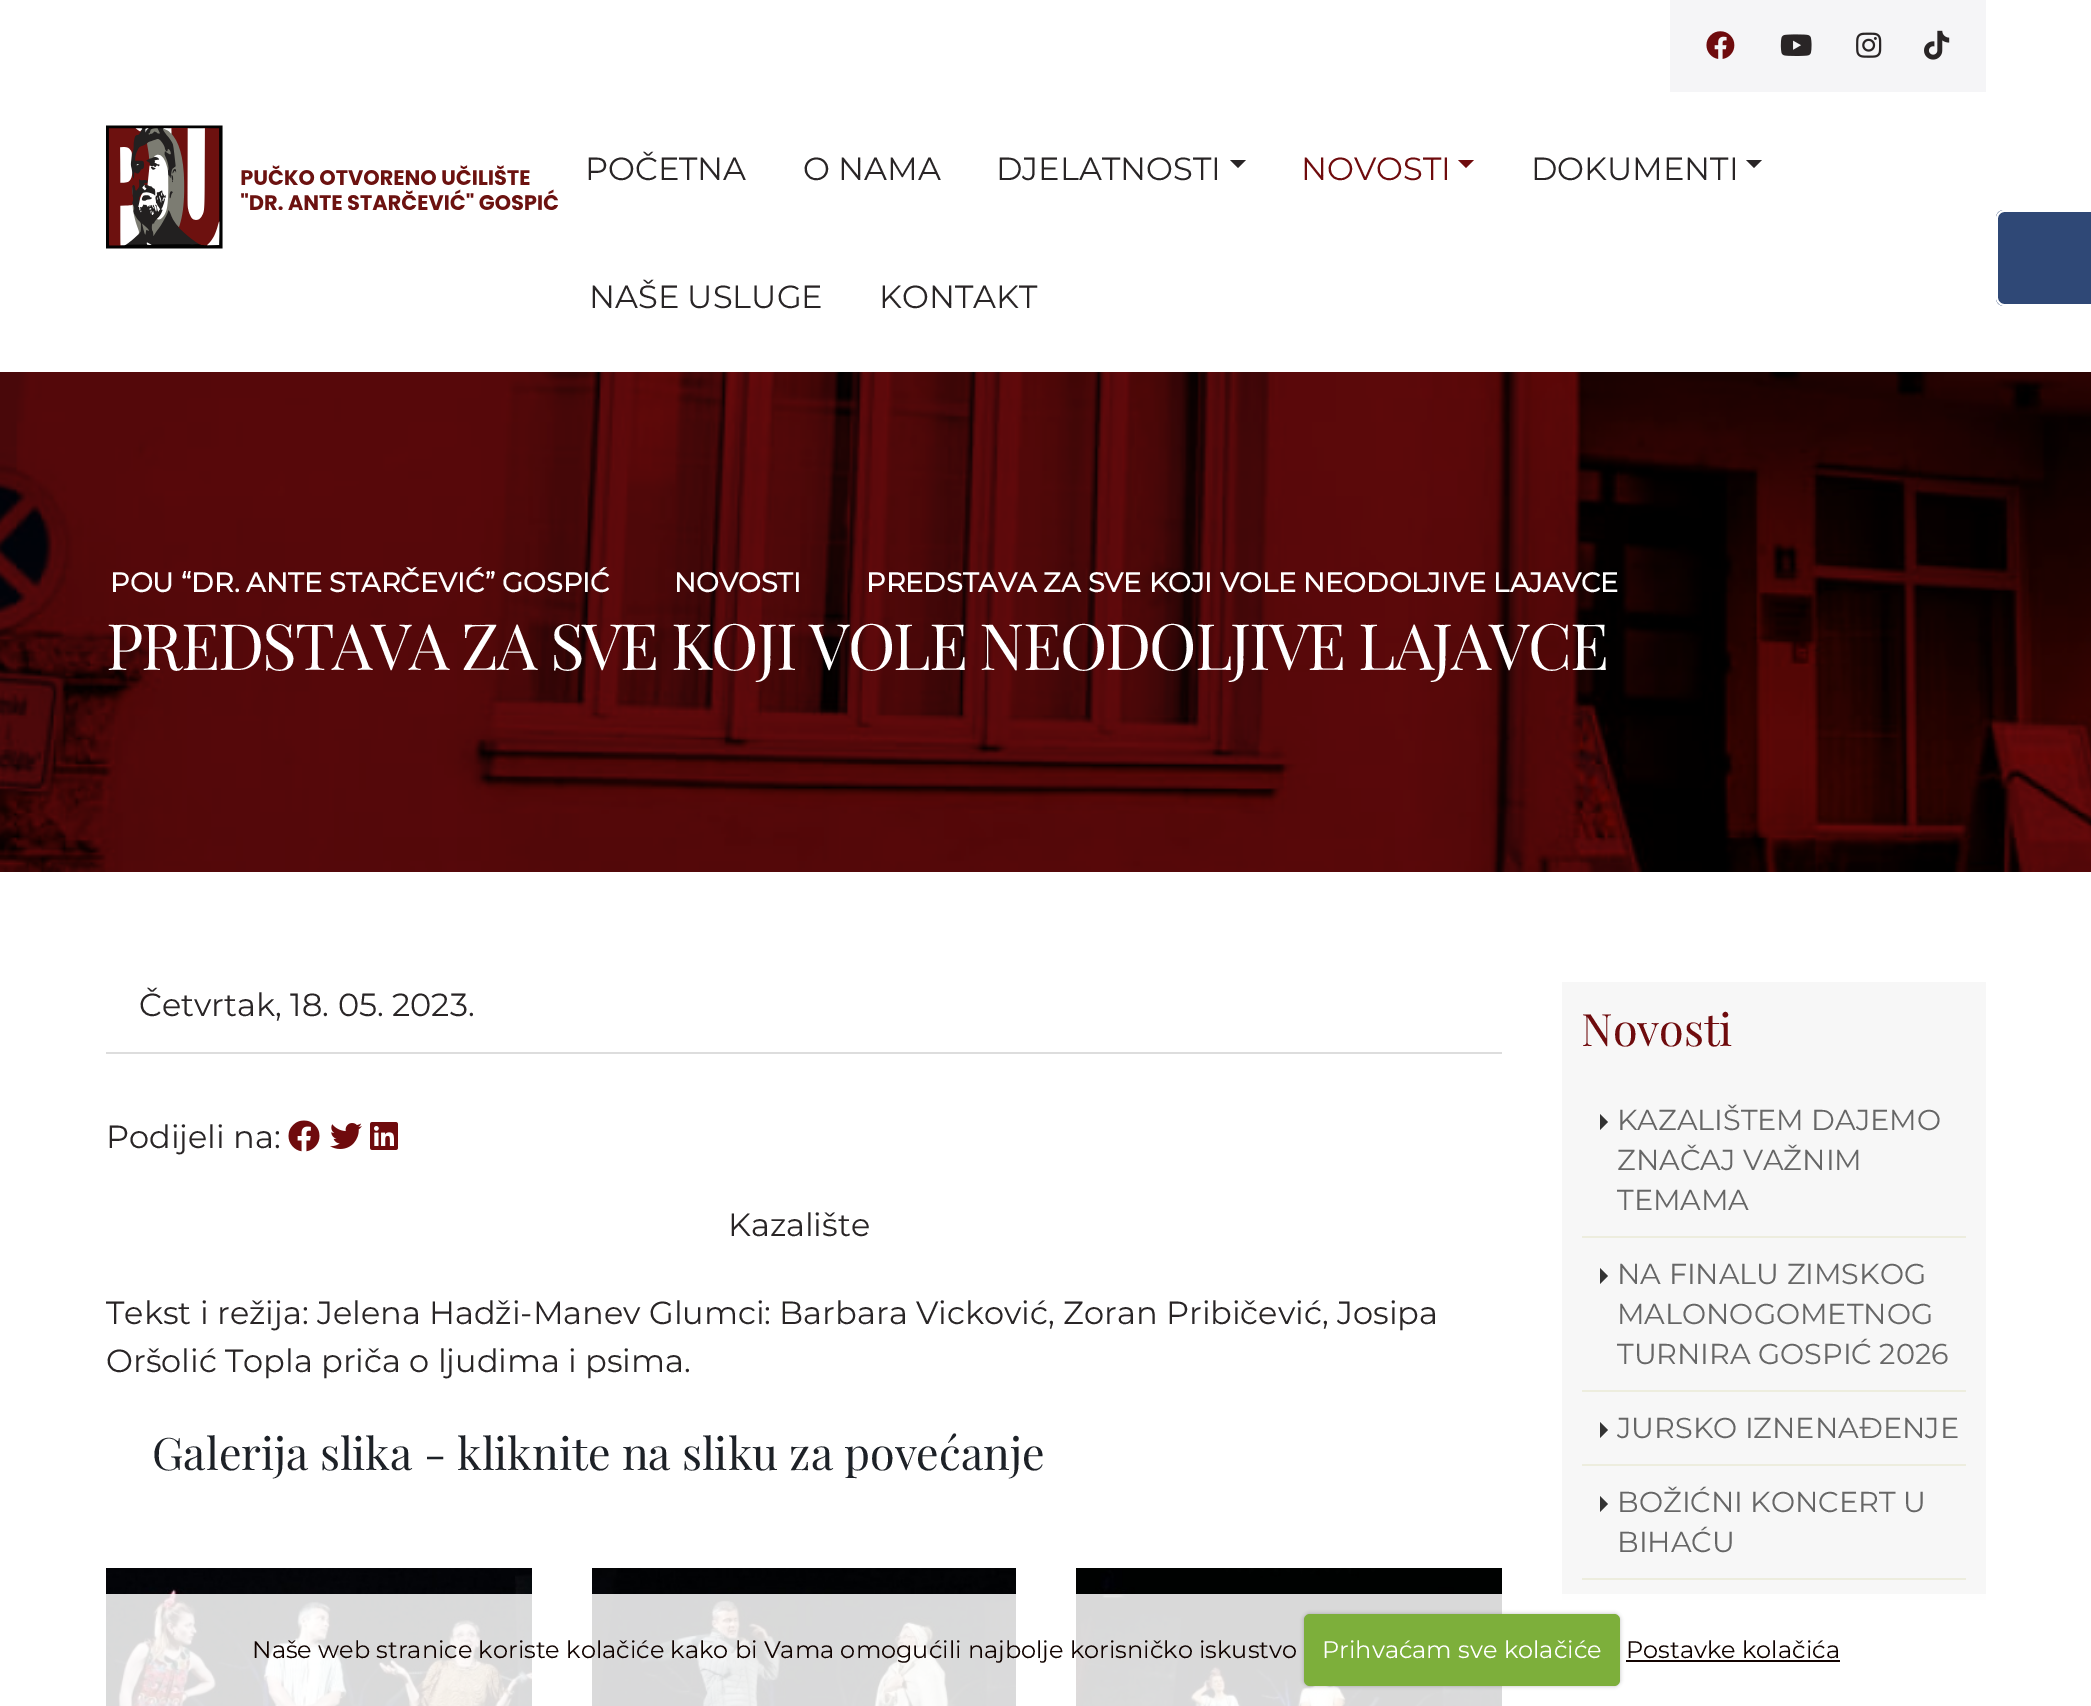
%!PS-Adobe-3.0
%%BoundingBox: 0 0 2091 1706
%%LanguageLevel: 3
%%Pages: 1
%%EndComments
%%BeginProlog
/setink { dup -16 bitshift 255 div exch dup -8 bitshift 255 and 255 div exch 255 and 255 div setrgbcolor } def
/usefont { [ exch dup neg 0 0 3 -1 roll 0 0 ] selectfont } def
/setalpha { dup .setfillconstantalpha .setstrokeconstantalpha } def
/rrect { 5 dict begin { /r /h /w /y /x } { exch def } forall
  x r add y moveto x w add y 2 copy h add r arct x w add y h add x 1 index r arct
  x y h add x y r arct x y 2 copy exch w add exch r arct closepath end } def
/softshadow { 12 dict begin { /a /b /q /h /w /y /x } { exch def } forall gsave /was 0 def
  9 -2 -9 { dup b mul 4 div /e exch def 1 sub .425 mul 2.718 exch exp 1 add a .99 .min exch div /now exch def
    1 1 now sub 1 was sub div sub setalpha /was now def
    w h .min e 2 mul add 0 gt { x e sub y e sub w e 2 mul add h e 2 mul add
      q e add b .6 mul add w h .min 2 div e add .min 0 .max rrect fill } if } for grestore end } def
/drawimage { 5 dict begin { /h /w /y /x /name } { exch def } forall
  gsave x y translate w h scale
  w h 8 [w 0 0 h 0 0] name (r) file false 3 colorimage grestore end } def
%%EndProlog
%%BeginSetup
<< /PageSize [2091 1706] /PageUsesTransparency true >> setpagedevice
%%EndSetup
%%Page: 1 1
0 .pushpdf14devicefilter
0 1706 translate 1 -1 scale
4 setmiterlimit
16#FFFFFF setink
0 0 2091 1706 rectfill
(img1.raw) 106 125 452 124 drawimage
16#F5F5F7 setink
1670 0 316 92 rectfill
(img2.raw) 1706 31 29 28 drawimage
(img3.raw) 1780 34 32 22 drawimage
(img4.raw) 1856 32 26 26 drawimage
(img5.raw) 1924 30 26 30 drawimage
/Montserrat-Thin 32 usefont
16#292526 setink
[
    [(POČETNA) 585 180]
    [(O NAMA) 803 180]
    [(DJELATNOSTI) 996 180]
] { aload pop moveto show } forall
1230 160 moveto 1246 160 lineto 1238 168 lineto closepath fill
16#6F0B0D setink
1301 180 moveto (NOVOSTI) show
1458 160 moveto 1474 160 lineto 1466 168 lineto closepath fill
16#292526 setink
1531 180 moveto (DOKUMENTI) show
1746 160 moveto 1762 160 lineto 1754 168 lineto closepath fill
589 308 moveto (NAŠE USLUGE) show
879 308 moveto (KONTAKT) show
16#2F4876 setink
2004 210 moveto 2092 210 lineto 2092 306 lineto 2004 306 lineto 1999.5 306 1996 302.5 1996 298 curveto 1996 218 lineto 1996 213.5 1999.5 210 2004 210 curveto closepath fill
16#FFFFFF setink
2004 210 moveto 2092 210 lineto 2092 306 lineto 2004 306 lineto 2000 306 1996 302 1996 298 curveto 1996 218 lineto 1996 214 2000 210 2004 210 curveto closepath 2004 212 moveto 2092 212 lineto 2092 304 lineto 2004 304 lineto 2001 304 1998 301 1998 298 curveto 1998 218 lineto 1998 215 2001 212 2004 212 curveto closepath eofill
(img6.raw) 0 372 2091 500 drawimage
/Montserrat-Bold 27.2 usefont
[
    [(POU “DR. ANTE STARČEVIĆ” GOSPIĆ) 110 592]
    [(NOVOSTI) 674 592]
    [(PREDSTAVA ZA SVE KOJI VOLE NEODOLJIVE LAJAVCE) 866 592]
] { aload pop moveto show } forall
/PlayfairDisplay-Regular 64 usefont
106 670 moveto -2 0 (PREDSTAVA ZA SVE KOJI VOLE NEODOLJIVE LAJAVCE) ashow
/Montserrat-Thin 32 usefont
16#292526 setink
139 1016 moveto (Četvrtak, 18. 05. 2023.) show
16#DDDDDD setink
106 1052 1396 2 rectfill
16#292526 setink
106 1148 moveto (Podijeli na:) show
(img7.raw) 288 1120 32 32 drawimage
(img8.raw) 330 1123 32 26 drawimage
(img9.raw) 370 1122 28 28 drawimage
[
    [(Kazalište) 728 1236]
    [(Tekst i režija: Jelena Hadži-Manev Glumci: Barbara Vicković, Zoran Pribičević, Josipa) 106 1324]
    [(Oršolić Topla priča o ljudima i psima.) 106 1372]
] { aload pop moveto show } forall
/PlayfairDisplay-Regular 44.75 usefont
16#1D2127 setink
152 1470 moveto (Galerija slika - kliknite na sliku za povećanje) show
(img10.raw) 106 1568 426 138 drawimage
(img11.raw) 592 1568 424 138 drawimage
(img12.raw) 1076 1568 426 138 drawimage
16#F7F7F7 setink
1562 982 424 618 rectfill
16#6F0B0D setink
1581 1046 moveto (Novosti) show
16#EDEDDE setink
1582 1236 384 2 rectfill
16#333333 setink
1600 1130 moveto 1600 1114 lineto 1608 1122 lineto closepath fill
/Montserrat-Thin 28.75 usefont
16#666666 setink
[
    [(KAZALIŠTEM DAJEMO) 1617 1130]
    [(ZNAČAJ VAŽNIM) 1617 1170]
    [(TEMAMA) 1617 1210]
] { aload pop moveto show } forall
16#EDEDDE setink
1582 1390 384 2 rectfill
16#333333 setink
1600 1284 moveto 1600 1268 lineto 1608 1276 lineto closepath fill
16#666666 setink
[
    [(NA FINALU ZIMSKOG) 1617 1284]
    [(MALONOGOMETNOG) 1617 1324]
    [(TURNIRA GOSPIĆ 2026) 1617 1364]
] { aload pop moveto show } forall
16#EDEDDE setink
1582 1464 384 2 rectfill
16#333333 setink
1600 1438 moveto 1600 1422 lineto 1608 1430 lineto closepath fill
16#666666 setink
1617 1438 moveto (JURSKO IZNENAĐENJE) show
16#EDEDDE setink
1582 1578 384 2 rectfill
16#333333 setink
1600 1512 moveto 1600 1496 lineto 1608 1504 lineto closepath fill
16#666666 setink
1617 1512 moveto (BOŽIĆNI KONCERT U) show
1617 1552 moveto (BIHAĆU) show
0.85 setalpha
16#FFFFFF setink
106 1594 1880 112 rectfill
/Montserrat-Thin 24 usefont
1 setalpha
16#110300 setink
252 1658 moveto (Naše web stranice koriste kolačiće kako bi Vama omogućili najbolje korisničko iskustvo) show
16#000000 setink
1304 1614 316 72 6 2 0.25 softshadow
16#7DAF3B setink
1304 1614 316 72 6 rrect fill
16#FFFFFF setink
1322 1658 moveto (Prihvaćam sve kolačiće) show
16#110300 setink
1626 1658 moveto (Postavke kolačića) show
1626 1660 214 2 rectfill
.poppdf14devicefilter showpage
%%EOF
